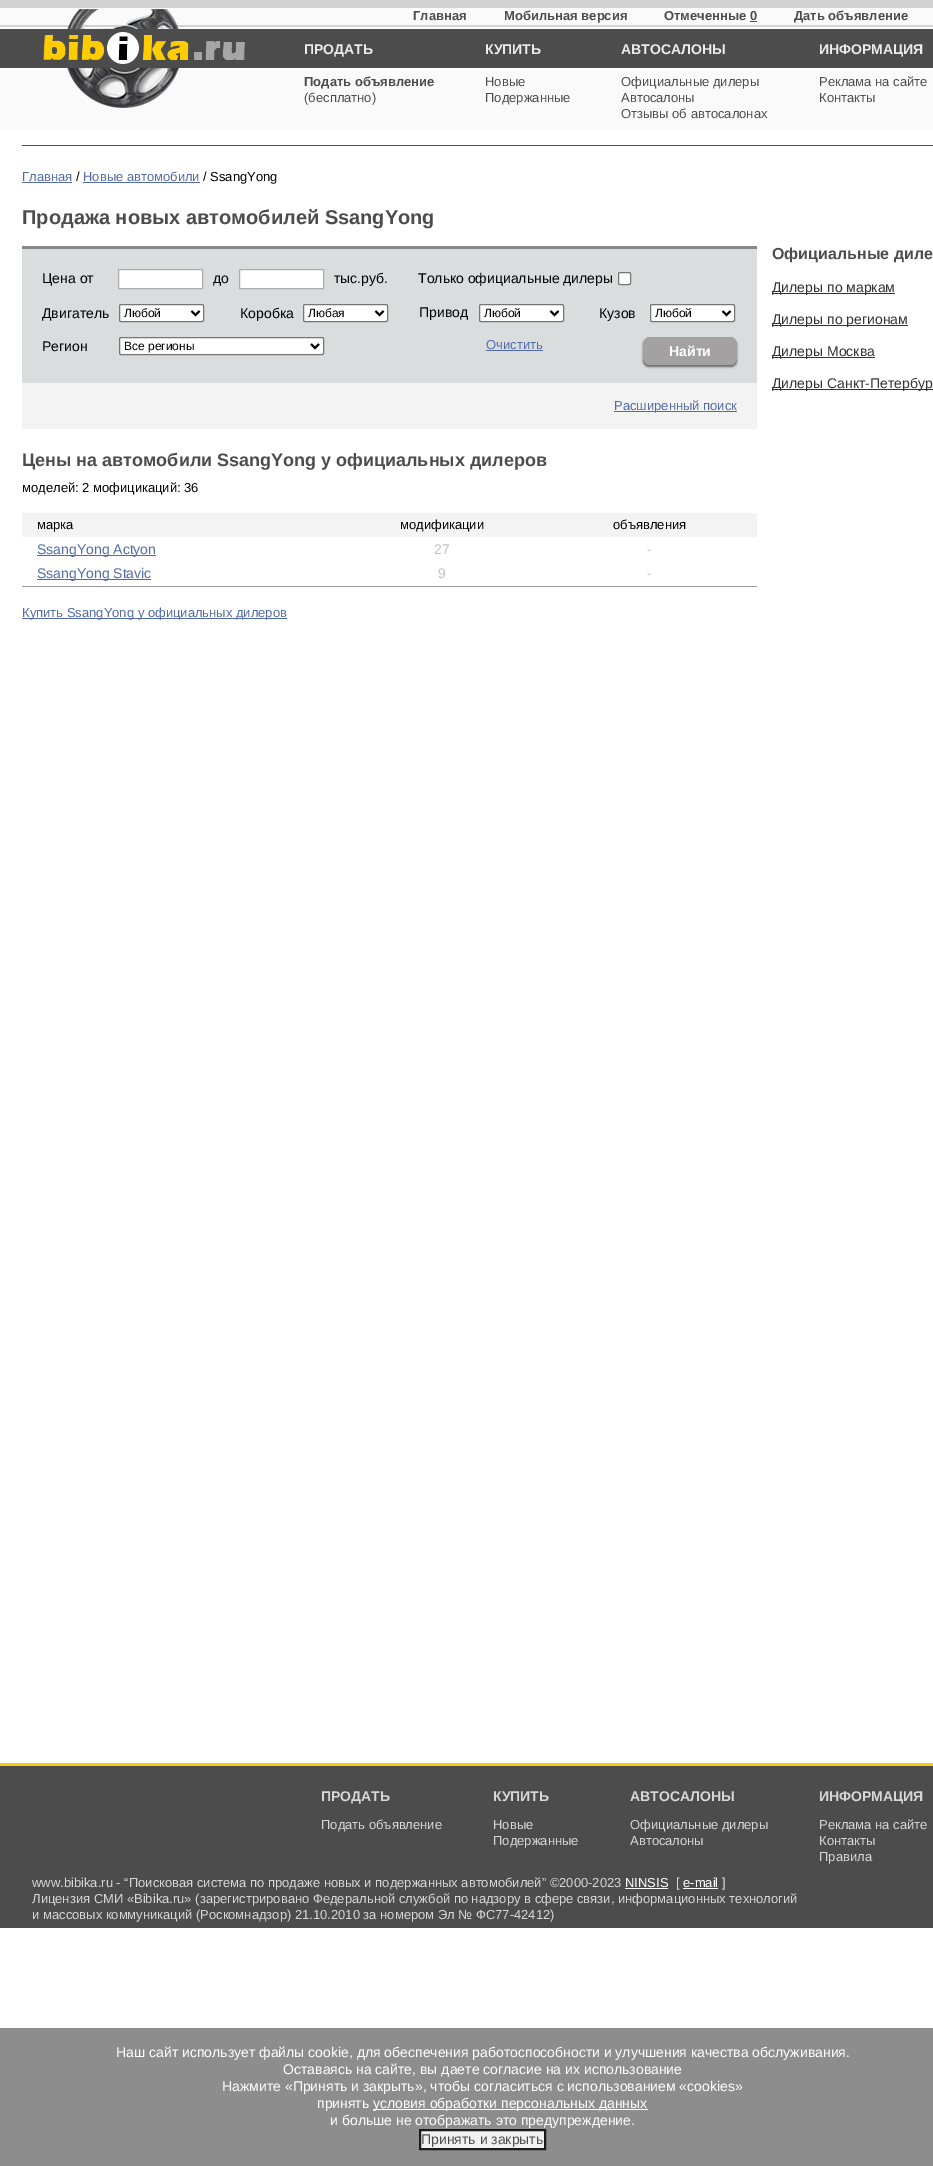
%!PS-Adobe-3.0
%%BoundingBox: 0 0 933 2166
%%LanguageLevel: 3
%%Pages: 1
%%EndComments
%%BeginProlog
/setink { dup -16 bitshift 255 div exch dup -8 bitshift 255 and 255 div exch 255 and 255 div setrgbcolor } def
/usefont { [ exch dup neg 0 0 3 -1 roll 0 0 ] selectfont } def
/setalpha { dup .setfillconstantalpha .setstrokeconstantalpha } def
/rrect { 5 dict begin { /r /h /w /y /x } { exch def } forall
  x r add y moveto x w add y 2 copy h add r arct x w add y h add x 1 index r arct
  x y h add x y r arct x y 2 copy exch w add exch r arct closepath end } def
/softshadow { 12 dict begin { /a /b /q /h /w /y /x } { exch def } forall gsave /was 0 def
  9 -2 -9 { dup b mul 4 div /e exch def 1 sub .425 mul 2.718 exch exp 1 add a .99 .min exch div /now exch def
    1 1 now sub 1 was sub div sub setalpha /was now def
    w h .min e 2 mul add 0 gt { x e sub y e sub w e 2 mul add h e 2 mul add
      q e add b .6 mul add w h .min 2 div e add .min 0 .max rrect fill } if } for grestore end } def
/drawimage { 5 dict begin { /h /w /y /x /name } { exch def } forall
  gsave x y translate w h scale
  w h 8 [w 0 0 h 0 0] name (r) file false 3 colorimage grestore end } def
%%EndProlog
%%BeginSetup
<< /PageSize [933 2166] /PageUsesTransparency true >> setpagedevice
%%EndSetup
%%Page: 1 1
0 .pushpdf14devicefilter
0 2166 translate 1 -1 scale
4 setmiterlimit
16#FFFFFF setink
0 0 933 2166 rectfill
[
    [0 8 933 17 16#FBFAFA]
    [0 0 933 8 16#D2D2D2]
    [0 25 933 2 16#D2D2D2]
] { aload pop setink rectfill } forall
/LiberationSans-Bold 13 usefont
16#4C4C4C setink
[
    [(Главная) 413 20]
    [(Мобильная версия) 504 20]
    [(Отмеченные 0) 664 20]
] { aload pop moveto show } forall
750 21 7 1 rectfill
794 20 moveto (Дать объявление) show
16#FAFAFA setink
0 70 933 59 rectfill
16#4C4C4C setink
0 29 933 39 rectfill
(img1.raw) 43 9 202 99 drawimage
/LiberationSans-Bold 14 usefont
16#EDECEC setink
304 54 moveto (ПРОДАТЬ) show
/LiberationSans-Bold 13 usefont
16#4C4C4C setink
304 86 moveto (Подать объявление) show
/LiberationSans-Regular 13 usefont
304 102 moveto (\(бесплатно\)) show
/LiberationSans-Bold 14 usefont
16#EDECEC setink
485 54 moveto (КУПИТЬ) show
/LiberationSans-Regular 13 usefont
16#4C4C4C setink
485 86 moveto (Новые) show
485 102 moveto (Подержанные) show
/LiberationSans-Bold 14 usefont
16#EDECEC setink
621 54 moveto (АВТОСАЛОНЫ) show
/LiberationSans-Regular 13 usefont
16#4C4C4C setink
[
    [(Официальные дилеры) 621 86]
    [(Автосалоны) 621 102]
    [(Отзывы об автосалонах) 621 118]
] { aload pop moveto show } forall
/LiberationSans-Bold 14 usefont
16#EDECEC setink
819 54 moveto (ИНФОРМАЦИЯ) show
/LiberationSans-Regular 13 usefont
16#4C4C4C setink
819 86 moveto (Реклама на сайте) show
819 102 moveto (Контакты) show
22 145 911 1 rectfill
16#526AA8 setink
22 181 moveto (Главная) show
22 182 50 1 rectfill
16#000000 setink
76 181 moveto (/) show
16#526AA8 setink
83 181 moveto (Новые автомобили) show
83 182 117 1 rectfill
16#000000 setink
203 181 moveto (/ SsangYong) show
/LiberationSans-Bold 20 usefont
16#4C4C4C setink
22 224 moveto (Продажа новых автомобилей SsangYong) show
16#D9DDDE setink
22 249 735 134 rectfill
16#888888 setink
22 246 735 3 rectfill
/LiberationSans-Regular 14 usefont
16#000000 setink
42 283 moveto (Цена от) show
16#FFFFFF setink
118.5 269.5 moveto 202.5 269.5 lineto 202.5 288.5 lineto 118.5 288.5 lineto closepath gsave fill grestore
16#ABADB3 setink
stroke
16#000000 setink
213 283 moveto (до) show
16#FFFFFF setink
239.5 269.5 moveto 323.5 269.5 lineto 323.5 288.5 lineto 239.5 288.5 lineto closepath gsave fill grestore
16#ABADB3 setink
stroke
16#000000 setink
334 283 moveto (тыс.руб.) show
418 283 moveto (Только официальные дилеры) show
16#FFFFFF setink
618.5 272.5 12 12 1.5 rrect gsave fill grestore
16#767676 setink
stroke
16#000000 setink
42 318 moveto (Двигатель) show
16#FFFFFF setink
119.5 304.5 84 17 1.5 rrect gsave fill grestore
16#767676 setink
stroke
16#000000 setink
2 setlinewidth
191.5 311 moveto 195.5 315 lineto 199.5 311 lineto stroke
/LiberationSans-Regular 12 usefont
124 317 moveto (Любой) show
/LiberationSans-Regular 14 usefont
240 318 moveto (Коробка) show
16#FFFFFF setink
303.5 304.5 84 17 1.5 rrect gsave fill grestore
16#767676 setink
1 setlinewidth
stroke
16#000000 setink
2 setlinewidth
375.5 311 moveto 379.5 315 lineto 383.5 311 lineto stroke
/LiberationSans-Regular 12 usefont
308 317 moveto (Любая) show
/LiberationSans-Regular 14 usefont
419 317 moveto (Привод) show
16#FFFFFF setink
479.5 304.5 84 17 1.5 rrect gsave fill grestore
16#767676 setink
1 setlinewidth
stroke
16#000000 setink
2 setlinewidth
550.5 311 moveto 554.5 315 lineto 558.5 311 lineto stroke
/LiberationSans-Regular 12 usefont
484 317 moveto (Любой) show
/LiberationSans-Regular 14 usefont
599 318 moveto (Кузов) show
16#FFFFFF setink
650.5 304.5 84 17 1.5 rrect gsave fill grestore
16#767676 setink
1 setlinewidth
stroke
16#000000 setink
2 setlinewidth
722.5 311 moveto 726.5 315 lineto 730.5 311 lineto stroke
/LiberationSans-Regular 12 usefont
655 317 moveto (Любой) show
/LiberationSans-Regular 14 usefont
42 351 moveto (Регион) show
16#FFFFFF setink
119.5 337.5 204 17 1.5 rrect gsave fill grestore
16#767676 setink
1 setlinewidth
stroke
16#000000 setink
2 setlinewidth
311 344 moveto 315 348 lineto 319 344 lineto stroke
/LiberationSans-Regular 12 usefont
124 350 moveto (Все регионы) show
/LiberationSans-Regular 13 usefont
16#526AA8 setink
486 349 moveto (Очистить) show
486 350 57 1 rectfill
16#676767 setink
643 339 94 28 6 1 1 softshadow
16#A3A1A2 setink
649 337 moveto 731 337 lineto 734 337 737 341 737 345 curveto 737 357 lineto 737 361 734 365 731 365 curveto 649 365 lineto 646 365 643 361 643 357 curveto 643 345 lineto 643 341 646 337 649 337 curveto closepath fill
/LiberationSans-Bold 14 usefont
16#FFFFFF setink
669 356 moveto (Найти) show
16#F3F3F3 setink
22 383 735 46 rectfill
16#526AA8 setink
614 411 123 1 rectfill
/LiberationSans-Regular 13 usefont
614 410 moveto (Расширенный поиск) show
/LiberationSans-Bold 18 usefont
16#4C4C4C setink
22 466 moveto (Цены на автомобили SsangYong у официальных дилеров) show
/LiberationSans-Regular 13 usefont
16#000000 setink
22 492 moveto (моделей: 2 мофицикаций: 36) show
16#F3F3F3 setink
22 513 735 24 rectfill
16#000000 setink
[
    [(марка) 37 529]
    [(модификации) 400 529]
    [(объявления) 613 529]
] { aload pop moveto show } forall
16#526AA8 setink
37 555 119 1 rectfill
/LiberationSans-Regular 14 usefont
37 554 moveto (SsangYong Actyon) show
16#C2C2C2 setink
434 554 moveto (27) show
647 554 moveto (-) show
16#526AA8 setink
37 579 114 1 rectfill
37 578 moveto (SsangYong Stavic) show
16#C2C2C2 setink
438 578 moveto (9) show
647 578 moveto (-) show
16#999999 setink
22 586 735 1 rectfill
16#526AA8 setink
22 618 265 1 rectfill
/LiberationSans-Regular 13 usefont
22 617 moveto (Купить SsangYong у официальных дилеров) show
/LiberationSans-Bold 16 usefont
16#4C4C4C setink
772 259 moveto (Официальные диле) show
16#333333 setink
772 293 123 1 rectfill
/LiberationSans-Regular 14 usefont
772 292 moveto (Дилеры по маркам) show
772 325 136 1 rectfill
772 324 moveto (Дилеры по регионам) show
772 357 103 1 rectfill
772 356 moveto (Дилеры Москва) show
772 389 161 1 rectfill
772 388 moveto (Дилеры Санкт-Петербур) show
16#4C4C4C setink
0 1766 933 162 rectfill
16#FCCC13 setink
0 1763 933 3 rectfill
/LiberationSans-Bold 14 usefont
16#D7D7D7 setink
321 1801 moveto (ПРОДАТЬ) show
/LiberationSans-Regular 13 usefont
321 1829 moveto (Подать объявление) show
/LiberationSans-Bold 14 usefont
493 1801 moveto (КУПИТЬ) show
/LiberationSans-Regular 13 usefont
493 1829 moveto (Новые) show
493 1845 moveto (Подержанные) show
/LiberationSans-Bold 14 usefont
630 1801 moveto (АВТОСАЛОНЫ) show
/LiberationSans-Regular 13 usefont
630 1829 moveto (Официальные дилеры) show
630 1845 moveto (Автосалоны) show
/LiberationSans-Bold 14 usefont
819 1801 moveto (ИНФОРМАЦИЯ) show
/LiberationSans-Regular 13 usefont
[
    [(Реклама на сайте) 819 1829]
    [(Контакты) 819 1845]
    [(Правила) 819 1861]
    [(www.bibika.ru - “Поисковая система по продаже новых и подержанных автомобилей” ©2000-2023) 32 1887]
] { aload pop moveto show } forall
16#FFFFFF setink
625 1887 moveto (NINSIS) show
625 1888 43 1 rectfill
16#D7D7D7 setink
676 1887 moveto ([) show
16#FFFFFF setink
683 1887 moveto (e-mail) show
683 1888 35 1 rectfill
16#D7D7D7 setink
[
    [(]) 722 1887]
    [(Лицензия СМИ «Bibika.ru» \(зарегистрировано Федеральной службой по надзору в сфере связи, информационных технологий) 32 1903]
    [(и массовых коммуникаций \(Роскомнадзор\) 21.10.2010 за номером Эл № ФС77-42412\)) 32 1919]
] { aload pop moveto show } forall
16#8D8D8D setink
0 2028 933 138 rectfill
/LiberationSans-Regular 14 usefont
16#FFFFFF setink
[
    [(Наш сайт использует файлы cookie, для обеспечения работоспособности и улучшения качества обслуживания.) 116 2057]
    [(Оставаясь на сайте, вы даете согласие на их использование) 283 2074]
    [(Нажмите «Принять и закрыть», чтобы согласиться с использованием «cookies») 222 2091]
    [(принять) 317 2108]
] { aload pop moveto show } forall
373 2109 275 1 rectfill
373 2108 moveto (условия обработки персональных данных) show
330 2125 moveto (и больше не отображать это предупреждение.) show
16#F1F1F1 setink
420 2130 moveto 545 2130 lineto 545 2149 lineto 420 2149 lineto closepath gsave fill grestore
16#1A1A1A setink
stroke
16#4C4C4C setink
421 2144 moveto (Принять и закрыть) show
.poppdf14devicefilter showpage
%%EOF
